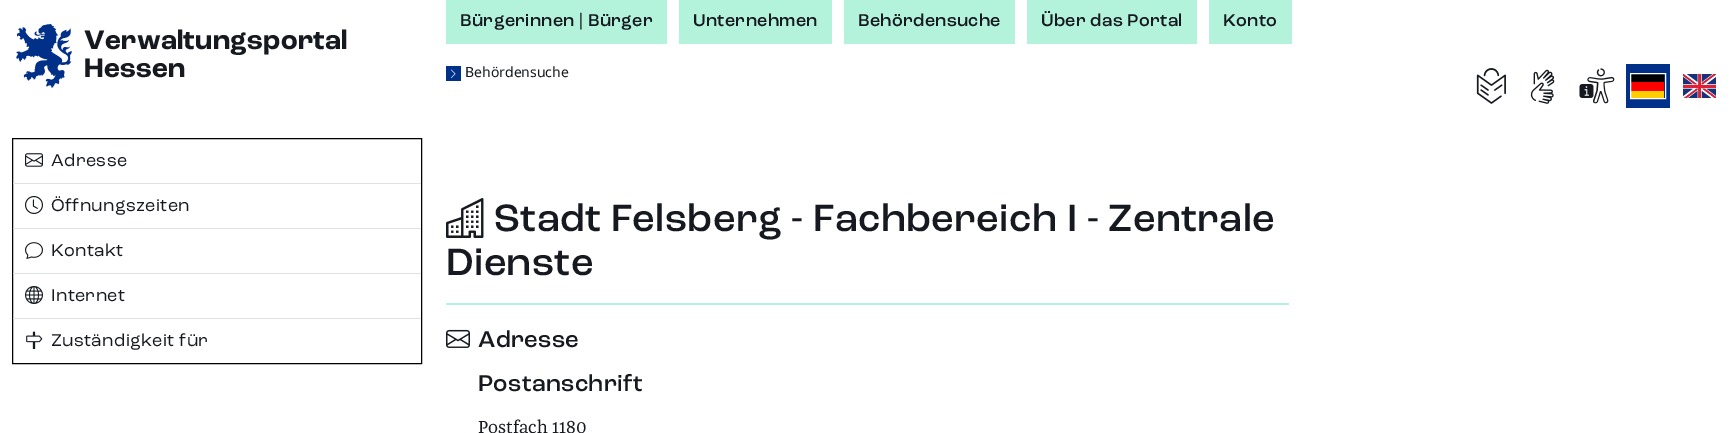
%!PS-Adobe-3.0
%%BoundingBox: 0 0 1734 433
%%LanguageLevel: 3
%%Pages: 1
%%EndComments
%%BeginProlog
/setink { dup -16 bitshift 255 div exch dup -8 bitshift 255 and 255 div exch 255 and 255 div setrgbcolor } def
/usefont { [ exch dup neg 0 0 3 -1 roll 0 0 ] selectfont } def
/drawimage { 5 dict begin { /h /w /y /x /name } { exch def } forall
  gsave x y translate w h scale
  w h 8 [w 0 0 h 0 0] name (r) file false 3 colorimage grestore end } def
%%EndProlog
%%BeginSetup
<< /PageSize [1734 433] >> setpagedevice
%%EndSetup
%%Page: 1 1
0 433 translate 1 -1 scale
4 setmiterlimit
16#FFFFFF setink
0 0 1734 433 rectfill
(img1.raw) 16 24 56 64 drawimage
/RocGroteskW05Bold-Bold 28 usefont
16#16191F setink
84 49 moveto 0.3 0 (Verwaltungsportal) ashow
84 77 moveto 0.3 0 (Hessen) ashow
16#B3F2DB setink
446 0 221 44 rectfill
/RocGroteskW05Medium-Medium 18 usefont
16#16191F setink
460 26 moveto 0.3 0 (Bürgerinnen | Bürger) ashow
16#B3F2DB setink
679 0 153 44 rectfill
16#16191F setink
693 26 moveto 0.3 0 (Unternehmen) ashow
16#B3F2DB setink
844 0 171 44 rectfill
16#16191F setink
858 26 moveto 0.3 0 (Behördensuche) ashow
16#B3F2DB setink
1027 0 170 44 rectfill
16#16191F setink
1041 26 moveto 0.3 0 (Über das Portal) ashow
16#B3F2DB setink
1209 0 83 44 rectfill
16#16191F setink
1223 26 moveto 0.3 0 (Konto) ashow
16#003087 setink
446 66 15 15 rectfill
(img2.raw) 451 69 5 9 drawimage
/NotoSans-Regular 14 usefont
16#16191F setink
465 77 moveto (Behördensuche) show
(img3.raw) 1476 68 30 36 drawimage
(img4.raw) 1530 69 25 35 drawimage
(img5.raw) 1579 68 36 36 drawimage
[
    [1626 64 44 44 16#003087]
    [1631 74 33 8 16#000000]
    [1631 82 33 9 16#FF0000]
    [1631 91 33 7 16#FFCD00]
] { aload pop setink rectfill } forall
16#FFFFFF setink
1630.5 73.5 35 25 rectstroke
(img6.raw) 1683 74 33 24 drawimage
16#000000 setink
12.5 138.5 409 225 rectstroke
(img7.raw) 25 153 18 14 drawimage
/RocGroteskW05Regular-Regular 18 usefont
16#16191F setink
51 166 moveto 0.3 0 (Adresse) ashow
16#DEE2E6 setink
13 183 408 1 rectfill
(img8.raw) 25 196 18 18 drawimage
16#16191F setink
51 211 moveto 0.3 0 (Öffnungszeiten) ashow
16#DEE2E6 setink
13 228 408 1 rectfill
(img9.raw) 25 242 18 17 drawimage
16#16191F setink
51 256 moveto 0.3 0 (Kontakt) ashow
16#DEE2E6 setink
13 273 408 1 rectfill
(img10.raw) 25 286 18 18 drawimage
16#16191F setink
51 301 moveto 0.3 0 (Internet) ashow
16#DEE2E6 setink
13 318 408 1 rectfill
(img11.raw) 26 331 17 18 drawimage
16#16191F setink
51 346 moveto 0.3 0 (Zuständigkeit für) ashow
(img12.raw) 446 198 38 40 drawimage
/RocGroteskW05Medium-Medium 40 usefont
494 231 moveto 0.3 0 (Stadt Felsberg - Fachbereich I - Zentrale) ashow
446 275 moveto 0.3 0 (Dienste) ashow
16#B3F2DB setink
446 303 843 2 rectfill
(img13.raw) 446 329 24 19 drawimage
/RocGroteskW05Medium-Medium 24 usefont
16#16191F setink
478 347 moveto 0.3 0 (Adresse) ashow
478 391 moveto 0.3 0 (Postanschrift) ashow
/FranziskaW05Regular-Regular 18 usefont
478 433 moveto (Postfach 1180) show
showpage
%%EOF
